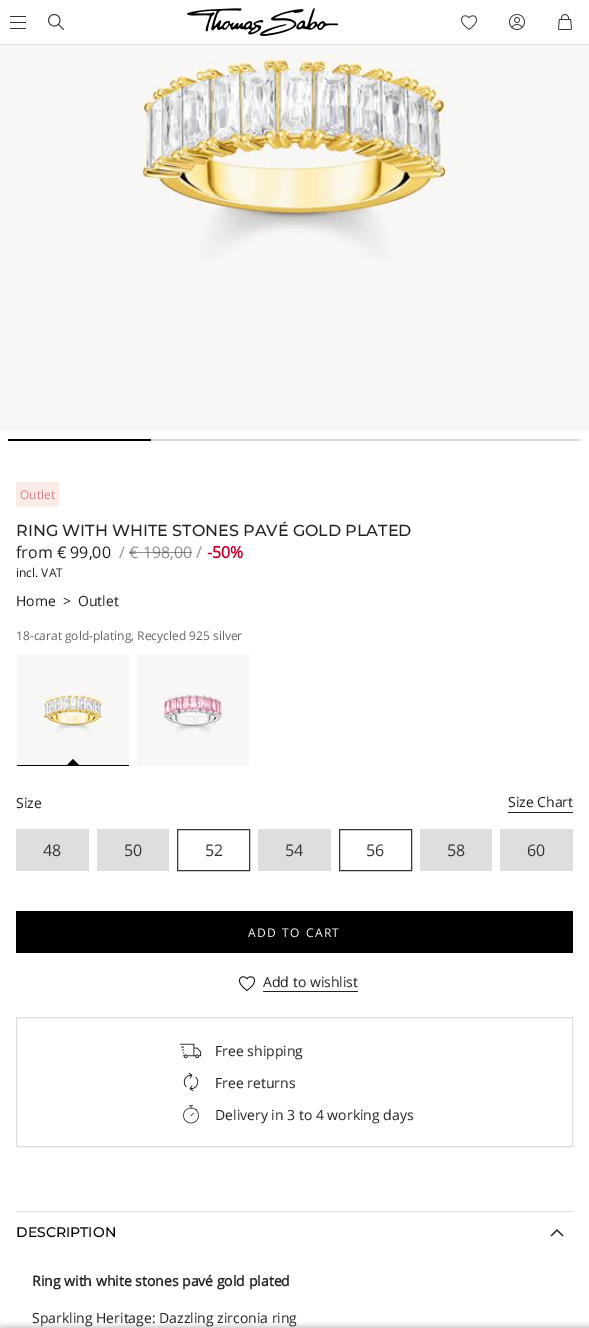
%!PS-Adobe-3.0
%%BoundingBox: 0 0 589 1328
%%LanguageLevel: 3
%%Pages: 1
%%EndComments
%%BeginProlog
/setink { dup -16 bitshift 255 div exch dup -8 bitshift 255 and 255 div exch 255 and 255 div setrgbcolor } def
/usefont { [ exch dup neg 0 0 3 -1 roll 0 0 ] selectfont } def
/setalpha { dup .setfillconstantalpha .setstrokeconstantalpha } def
/rrect { 5 dict begin { /r /h /w /y /x } { exch def } forall
  x r add y moveto x w add y 2 copy h add r arct x w add y h add x 1 index r arct
  x y h add x y r arct x y 2 copy exch w add exch r arct closepath end } def
/softshadow { 12 dict begin { /a /b /q /h /w /y /x } { exch def } forall gsave /was 0 def
  9 -2 -9 { dup b mul 4 div /e exch def 1 sub .425 mul 2.718 exch exp 1 add a .99 .min exch div /now exch def
    1 1 now sub 1 was sub div sub setalpha /was now def
    w h .min e 2 mul add 0 gt { x e sub y e sub w e 2 mul add h e 2 mul add
      q e add b .6 mul add w h .min 2 div e add .min 0 .max rrect fill } if } for grestore end } def
/drawimage { 5 dict begin { /h /w /y /x /name } { exch def } forall
  gsave x y translate w h scale
  w h 8 [w 0 0 h 0 0] name (r) file false 3 colorimage grestore end } def
%%EndProlog
%%BeginSetup
<< /PageSize [589 1328] /PageUsesTransparency true >> setpagedevice
%%EndSetup
%%Page: 1 1
0 .pushpdf14devicefilter
0 1328 translate 1 -1 scale
4 setmiterlimit
16#FFFFFF setink
0 0 589 1328 rectfill
[
    [0 44 589 1 16#DDDDDD]
    [10 16 16 1 16#343434]
    [10 22 16 1 16#343434]
    [10 28 16 1 16#343434]
] { aload pop setink rectfill } forall
(img1.raw) 48 14 16 16 drawimage
(img2.raw) 187 8 151 28 drawimage
(img3.raw) 461 15 16 15 drawimage
(img4.raw) 509 14 16 16 drawimage
(img5.raw) 558 14 14 16 drawimage
16#F9F7F5 setink
0 45 589 386 rectfill
(img6.raw) 139 51 315 210 drawimage
[
    [8 439 143 2 16#000000]
    [151 439 430 2 16#DEDEDE]
    [16 482 43 25 16#FBEBE6]
] { aload pop setink rectfill } forall
/OpenSans-Regular 12 usefont
16#CE8484 setink
20 499 moveto (Outlet) show
/Montserrat-Thin 16 usefont
16#222222 setink
16 536 moveto (RING WITH WHITE STONES PAVÉ GOLD PLATED) show
/OpenSans-Regular 16 usefont
16 558 moveto (from € 99,00) show
16#919191 setink
119 558 moveto (/ € 198,00 /) show
/OpenSans-Bold 16 usefont
16#C1052F setink
207 558 moveto (-50%) show
0.5 setalpha
16#222222 setink
129 552 63 1 rectfill
/OpenSans-Regular 12 usefont
1 setalpha
16 577 moveto (incl. VAT) show
/OpenSans-Regular 14 usefont
[
    [(Home) 16 606]
    [(>) 63 606]
    [(Outlet) 78 606]
] { aload pop moveto show } forall
/OpenSans-Regular 12 usefont
16#666666 setink
16 640 moveto (18-carat gold-plating, Recycled 925 silver) show
16#F9F7F5 setink
17 654 112 111 rectfill
(img7.raw) 33 686 80 48 drawimage
16#000000 setink
17 765 112 1 rectfill
80 766 moveto 66 766 lineto 73 759 lineto closepath fill
16#F9F7F5 setink
137 654 112 112 rectfill
(img8.raw) 154 692 71 42 drawimage
/OpenSans-Regular 14 usefont
16#222222 setink
16 808 moveto (Size) show
508 812 65 1 rectfill
508 807 moveto (Size Chart) show
16#DEDEDE setink
16 829 73 42 rectfill
/OpenSans-Regular 16 usefont
16#343434 setink
43 856 moveto (48) show
16#DEDEDE setink
97 829 72 42 rectfill
16#343434 setink
124 856 moveto (50) show
177.5 829.5 72 41 rectstroke
205 856 moveto (52) show
16#DEDEDE setink
258 829 73 42 rectfill
16#343434 setink
285 856 moveto (54) show
339.5 829.5 72 41 rectstroke
366 856 moveto (56) show
16#DEDEDE setink
420 829 72 42 rectfill
16#343434 setink
447 856 moveto (58) show
16#DEDEDE setink
500 829 73 42 rectfill
16#343434 setink
527 856 moveto (60) show
16#000000 setink
16 911 557 42 rectfill
/OpenSans-Regular 12 usefont
16#FFFFFF setink
248 937 moveto 1 0 32 1.25 0 (ADD TO CART) awidthshow
16#000000 setink
1 1326 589 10 0 2.5 0.2 softshadow
16#222222 setink
263 991 95 1 rectfill
(img9.raw) 239 976 16 15 drawimage
/OpenSans-Regular 14 usefont
263 987 moveto (Add to wishlist) show
16#DDDDDD setink
16.5 1017.5 556 129 rectstroke
(img10.raw) 180 1043 22 16 drawimage
16#222222 setink
215 1056 moveto (Free shipping) show
(img11.raw) 183 1073 16 18 drawimage
215 1088 moveto (Free returns) show
(img12.raw) 183 1105 16 19 drawimage
215 1120 moveto (Delivery in 3 to 4 working days) show
16#DDDDDD setink
16 1211 557 1 rectfill
/Montserrat-Thin 14 usefont
16#000000 setink
16 1237 moveto (DESCRIPTION) show
(img13.raw) 550 1229 14 8 drawimage
/OpenSans-Bold 14 usefont
16#222222 setink
32 1286 moveto (Ring with white stones pavé gold plated) show
/OpenSans-Regular 14 usefont
32 1323 moveto (Sparkling Heritage: Dazzling zirconia ring) show
.poppdf14devicefilter showpage
%%EOF
